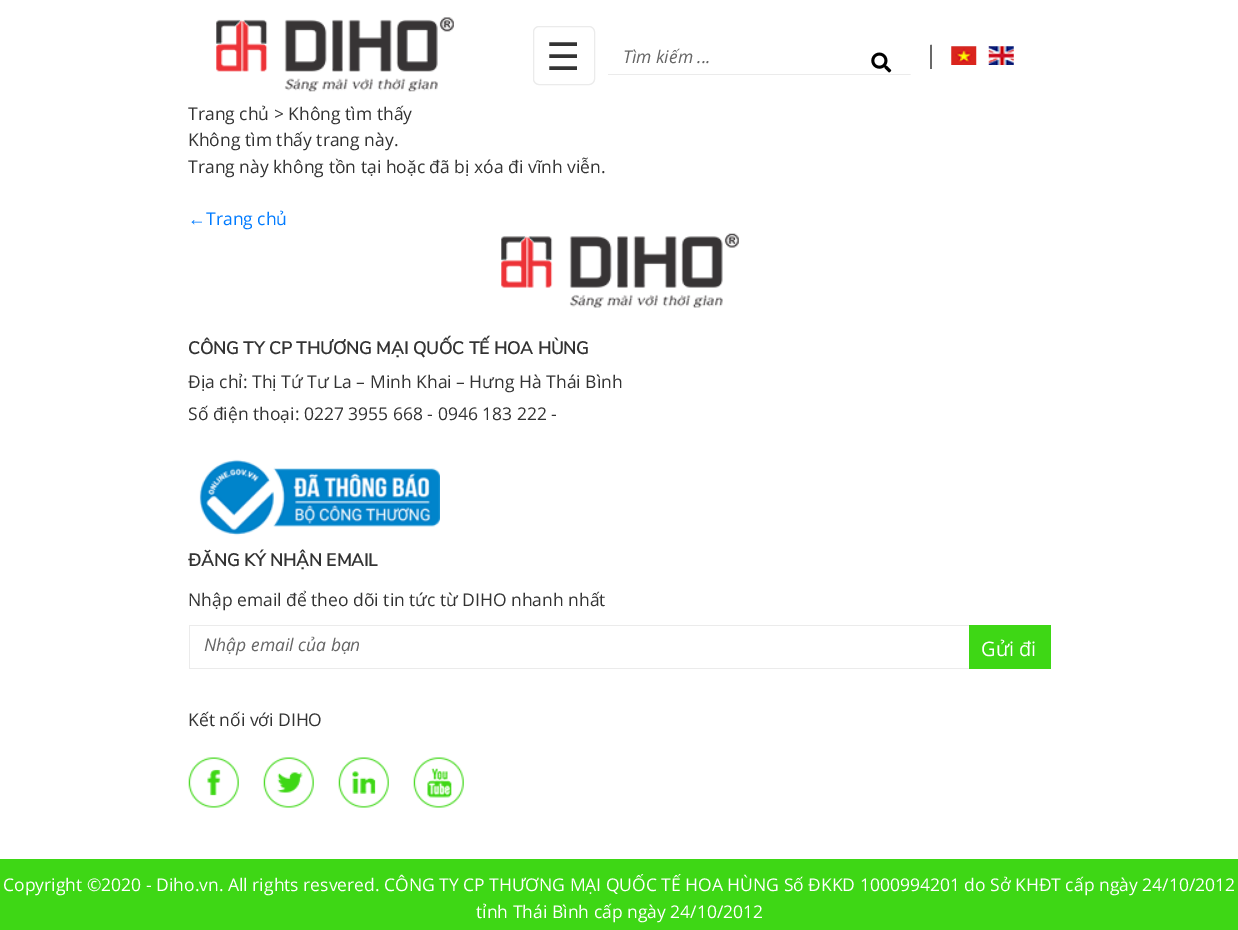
%!PS-Adobe-3.0
%%BoundingBox: 0 0 1238 930
%%LanguageLevel: 3
%%Pages: 1
%%EndComments
%%BeginProlog
/setink { dup -16 bitshift 255 div exch dup -8 bitshift 255 and 255 div exch 255 and 255 div setrgbcolor } def
/usefont { [ exch dup neg 0 0 3 -1 roll 0 0 ] selectfont } def
/rrect { 5 dict begin { /r /h /w /y /x } { exch def } forall
  x r add y moveto x w add y 2 copy h add r arct x w add y h add x 1 index r arct
  x y h add x y r arct x y 2 copy exch w add exch r arct closepath end } def
/drawimage { 5 dict begin { /h /w /y /x /name } { exch def } forall
  gsave x y translate w h scale
  w h 8 [w 0 0 h 0 0] name (r) file false 3 colorimage grestore end } def
%%EndProlog
%%BeginSetup
<< /PageSize [1238 930] >> setpagedevice
%%EndSetup
%%Page: 1 1
0 930 translate 1 -1 scale
4 setmiterlimit
16#FFFFFF setink
0 0 1238 930 rectfill
(img1.raw) 216 17 238 75 drawimage
16#EBEBEB setink
533.5 26.5 61 58 5.5 rrect stroke
/DejaVuSans-Regular 38 usefont
16#333333 setink
546 70 moveto (☰) show
16#EBEBEB setink
608 74 246 1 rectfill
/OpenSans-Italic 17.5 usefont
16#666666 setink
623 63 moveto (Tìm kiếm ...) show
16#FFFFFF setink
853 74 1 1 rectfill
16#EBEBEB setink
911 75 moveto 852 75 lineto 852 74 lineto 910 74 lineto closepath fill
(img2.raw) 871 52 21 21 drawimage
/LiberationSerif-Regular 20 usefont
16#333333 setink
924 63 moveto (│) show
(img3.raw) 951 46 26 19 drawimage
(img4.raw) 988 46 26 19 drawimage
/OpenSans-Regular 17.5 usefont
[
    [(Trang chủ > Không tìm thấy) 188 120]
    [(Không tìm thấy trang này.) 188 146]
    [(Trang này không tồn tại hoặc đã bị xóa đi vĩnh viễn.) 188 173]
] { aload pop moveto show } forall
/LiberationSerif-Regular 17.5 usefont
16#007BFF setink
188 225 moveto (←) show
/OpenSans-Regular 17.5 usefont
206 225 moveto (Trang chủ) show
(img5.raw) 501 233 238 75 drawimage
/NunitoSans-Bold 17.5 usefont
16#333333 setink
188 354 moveto (CÔNG TY CP THƯƠNG MẠI QUỐC TẾ HOA HÙNG) show
/OpenSans-Regular 17.5 usefont
188 388 moveto (Địa chỉ: Thị Tứ Tư La – Minh Khai – Hưng Hà Thái Bình) show
188 420 moveto (Số điện thoại: 0227 3955 668 - 0946 183 222 -) show
(img6.raw) 199 459 241 77 drawimage
/NunitoSans-Bold 17.5 usefont
188 566 moveto (ĐĂNG KÝ NHẬN EMAIL) show
/OpenSans-Regular 17.5 usefont
188 606 moveto (Nhập email để theo dõi tin tức từ DIHO nhanh nhất) show
[
    [189 625 781 1 16#EBEBEB]
    [189 668 781 1 16#EBEBEB]
    [189 625 1 44 16#EBEBEB]
] { aload pop setink rectfill } forall
/OpenSans-Italic 17.5 usefont
16#666666 setink
204 651 moveto (Nhập email của bạn) show
16#3ED715 setink
969 625 82 44 rectfill
/OpenSans-Regular 20 usefont
16#FFFFFF setink
981 656 moveto (Gửi đi) show
/OpenSans-Regular 17.5 usefont
16#333333 setink
188 726 moveto (Kết nối với DIHO) show
(img7.raw) 188 757 51 51 drawimage
(img8.raw) 263 757 51 51 drawimage
(img9.raw) 338 757 51 51 drawimage
(img10.raw) 413 757 51 51 drawimage
16#3ED715 setink
0 859 1238 71 rectfill
16#FFFFFF setink
3 891 moveto (Copyright ©2020 - Diho.vn. All rights resvered. CÔNG TY CP THƯƠNG MẠI QUỐC TẾ HOA HÙNG Số ĐKKD 1000994201 do Sở KHĐT cấp ngày 24/10/2012) show
476 918 moveto (tỉnh Thái Bình cấp ngày 24/10/2012) show
showpage
%%EOF
